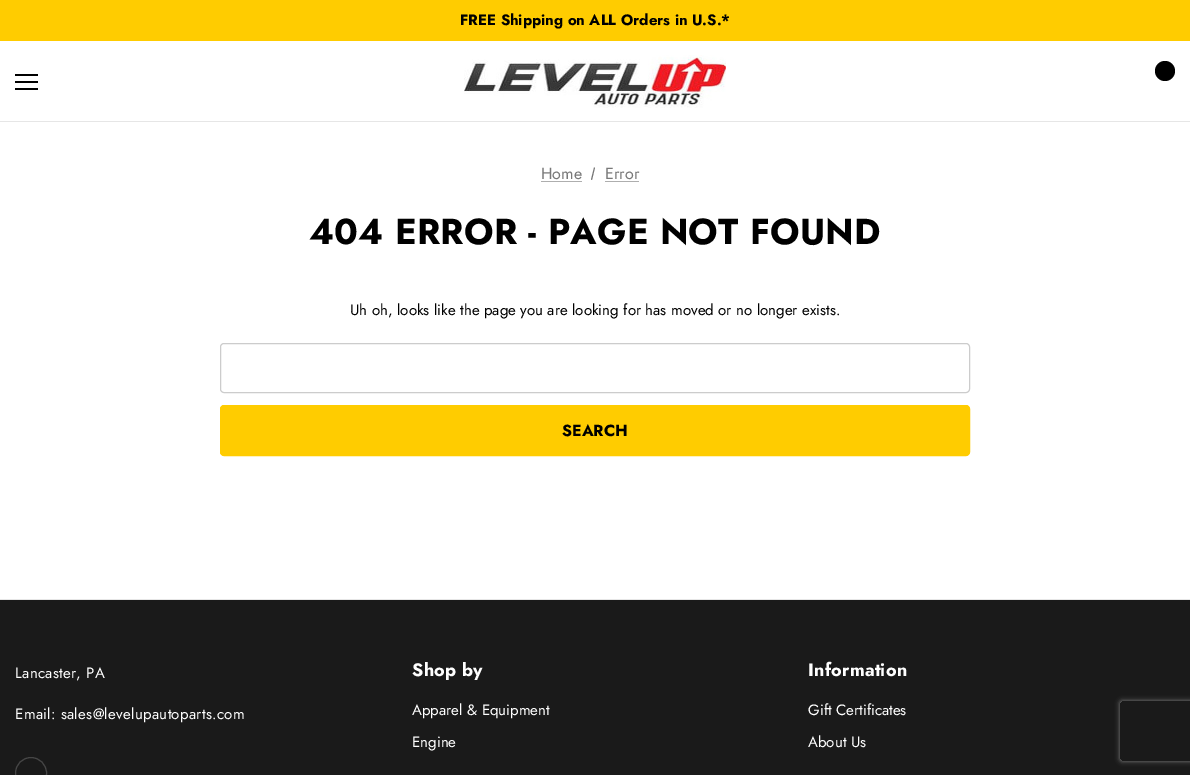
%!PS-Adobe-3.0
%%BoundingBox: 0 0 1190 775
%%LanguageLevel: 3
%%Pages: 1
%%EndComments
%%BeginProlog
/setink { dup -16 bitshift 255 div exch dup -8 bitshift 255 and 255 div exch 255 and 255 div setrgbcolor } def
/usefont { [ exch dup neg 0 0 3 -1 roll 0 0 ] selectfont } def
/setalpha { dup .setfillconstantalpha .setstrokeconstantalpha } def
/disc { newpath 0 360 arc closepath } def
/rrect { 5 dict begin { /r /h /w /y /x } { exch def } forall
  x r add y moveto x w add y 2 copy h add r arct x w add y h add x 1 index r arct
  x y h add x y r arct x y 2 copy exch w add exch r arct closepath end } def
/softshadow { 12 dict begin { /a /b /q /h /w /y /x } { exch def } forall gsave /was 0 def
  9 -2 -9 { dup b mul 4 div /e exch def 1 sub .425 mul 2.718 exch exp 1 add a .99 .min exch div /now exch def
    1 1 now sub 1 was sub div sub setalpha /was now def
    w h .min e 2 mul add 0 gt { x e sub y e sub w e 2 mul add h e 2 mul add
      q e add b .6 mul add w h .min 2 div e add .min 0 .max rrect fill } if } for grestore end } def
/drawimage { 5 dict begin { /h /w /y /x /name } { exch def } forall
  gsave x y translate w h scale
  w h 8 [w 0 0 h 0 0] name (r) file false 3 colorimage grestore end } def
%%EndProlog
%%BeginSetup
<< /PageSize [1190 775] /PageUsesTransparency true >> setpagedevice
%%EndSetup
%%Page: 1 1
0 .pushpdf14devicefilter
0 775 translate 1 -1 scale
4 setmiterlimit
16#FFFFFF setink
0 0 1190 775 rectfill
16#FFCC00 setink
0 0 1190 41 rectfill
/Jost-Bold 15 usefont
16#000000 setink
460 25 moveto (FREE Shipping on ALL Orders in U.S.*) show
[
    [0 121 1190 1 16#E6E6E6]
    [15 81 23 2 16#000000]
    [15 74 23 2 16#000000]
    [15 88 23 2 16#000000]
] { aload pop setink rectfill } forall
(img1.raw) 464 55 262 53 drawimage
1165 71 10 disc fill
16#AEAEAE setink
541 181 41 1 rectfill
/Jost-Regular 16 usefont
16#787878 setink
541 179 moveto (Home) show
16#757575 setink
594 167.5 moveto 595 167.5 lineto 592 180 lineto 591 179.5 lineto closepath fill
16#AEAEAE setink
605 181 34 1 rectfill
16#787878 setink
605 179 moveto (Error) show
/Jost-Bold 36 usefont
16#000000 setink
309 244 moveto 0.25 0 (404 ERROR - PAGE NOT FOUND) ashow
/Jost-Regular 15 usefont
350 315 moveto (Uh oh, looks like the page you are looking for has moved or no longer exists.) show
16#CCCCCC setink
220.5 343.5 749 49 3.5 rrect stroke
16#FFCC00 setink
220.5 405.5 749 50 3.5 rrect gsave fill grestore
stroke
/Jost-Bold 16 usefont
16#000000 setink
562 436 moveto (SEARCH) show
16#1A1A1A setink
0 600 1190 175 rectfill
16#E6E6E6 setink
0 599 1190 1 rectfill
/Jost-Regular 15 usefont
16#FFFFFF setink
15 678 moveto 0.3 0 (Lancaster, PA) ashow
15 719 moveto 0.3 0 (Email: sales@levelupautoparts.com) ashow
16#464646 setink
31 773 15.5 disc stroke
/Jost-Bold 18 usefont
16#FFFFFF setink
412 676 moveto 0.25 0 (Shop by) ashow
/Jost-Regular 15 usefont
412 715 moveto (Apparel & Equipment) show
412 747 moveto (Engine) show
/Jost-Bold 18 usefont
808 676 moveto 0.25 0 (Information) ashow
/Jost-Regular 15 usefont
808 715 moveto (Gift Certificates) show
808 747 moveto (About Us) show
gsave
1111 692 moveto 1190 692 lineto 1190 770 lineto 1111 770 lineto closepath 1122 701 moveto 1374 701 lineto 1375 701 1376 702 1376 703 curveto 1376 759 lineto 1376 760 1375 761 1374 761 curveto 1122 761 lineto 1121 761 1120 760 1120 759 curveto 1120 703 lineto 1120 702 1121 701 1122 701 curveto closepath eoclip newpath
16#808080 setink
1120 701 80 60 2 2.5 1 softshadow
grestore
.poppdf14devicefilter showpage
%%EOF
